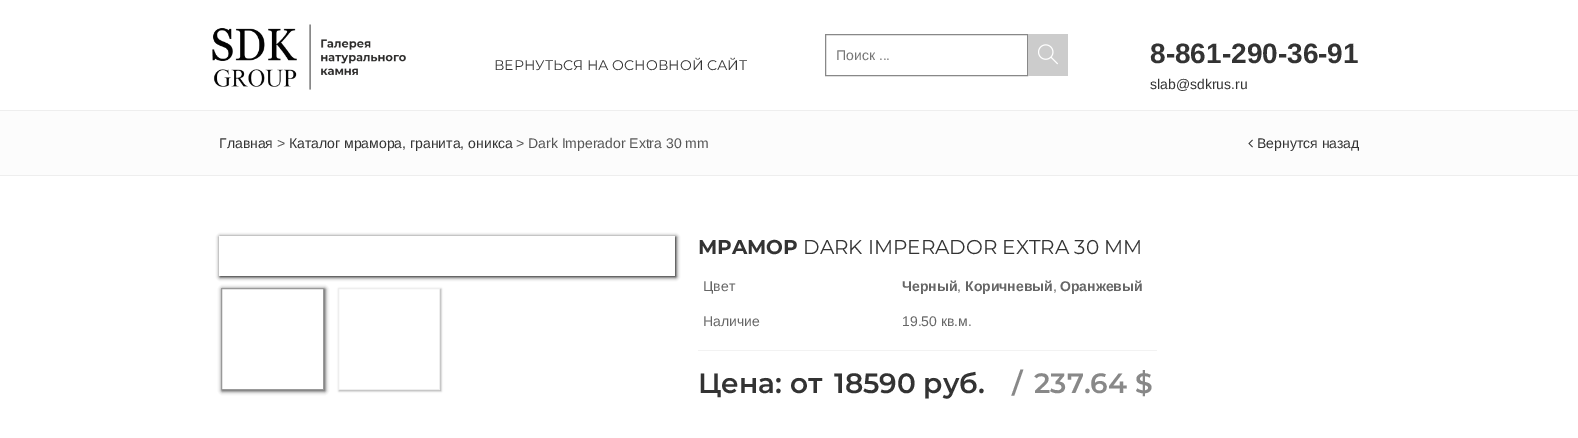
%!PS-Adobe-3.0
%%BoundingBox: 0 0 1578 438
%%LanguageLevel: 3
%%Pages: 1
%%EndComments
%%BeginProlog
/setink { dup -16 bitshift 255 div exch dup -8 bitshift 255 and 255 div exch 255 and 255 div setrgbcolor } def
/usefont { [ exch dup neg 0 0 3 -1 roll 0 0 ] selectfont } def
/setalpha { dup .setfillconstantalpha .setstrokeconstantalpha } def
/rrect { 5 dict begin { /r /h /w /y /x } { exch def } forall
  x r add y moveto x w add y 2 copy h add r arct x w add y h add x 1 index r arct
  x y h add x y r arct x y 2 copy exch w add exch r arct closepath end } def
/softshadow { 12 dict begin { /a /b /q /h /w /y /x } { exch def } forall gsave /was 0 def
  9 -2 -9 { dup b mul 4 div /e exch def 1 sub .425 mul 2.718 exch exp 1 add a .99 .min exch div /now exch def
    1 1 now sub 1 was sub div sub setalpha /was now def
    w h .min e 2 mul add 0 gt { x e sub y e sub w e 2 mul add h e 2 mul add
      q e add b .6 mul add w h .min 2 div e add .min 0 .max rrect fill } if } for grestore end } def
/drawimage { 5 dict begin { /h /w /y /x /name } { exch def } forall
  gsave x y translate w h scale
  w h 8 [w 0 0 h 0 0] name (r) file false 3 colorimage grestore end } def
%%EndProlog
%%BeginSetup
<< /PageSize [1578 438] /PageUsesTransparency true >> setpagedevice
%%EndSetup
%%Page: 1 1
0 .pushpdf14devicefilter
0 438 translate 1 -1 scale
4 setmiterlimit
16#FFFFFF setink
0 0 1578 438 rectfill
16#EEEEEE setink
0 110 1578 1 rectfill
(img1.raw) 212 24 194 66 drawimage
16#888888 setink
825.5 34.5 202 41 rectstroke
/LiberationSans-Regular 14 usefont
16#757575 setink
836 60 moveto (Поиск ...) show
16#CCCCCC setink
1028 34 40 42 rectfill
(img2.raw) 1038 44 20 21 drawimage
/LiberationSans-Bold 28 usefont
16#333333 setink
1150 63 moveto (8-861-290-36-91) show
/LiberationSans-Regular 14 usefont
1150 89 moveto (slab@sdkrus.ru) show
/Montserrat-Regular 14 usefont
494 70 moveto (ВЕРНУТЬСЯ НА ОСНОВНОЙ САЙТ) show
16#FCFCFC setink
0 111 1578 64 rectfill
16#EEEEEE setink
0 175 1578 1 rectfill
/LiberationSans-Regular 14 usefont
16#333333 setink
219 148 moveto (Главная) show
16#555555 setink
277 148 moveto (>) show
16#333333 setink
289 148 moveto (Каталог мрамора, гранита, оникса) show
16#555555 setink
516 148 moveto (> Dark Imperador Extra 30 mm) show
(img3.raw) 1248 139 5 9 drawimage
16#333333 setink
1257 148 moveto (Вернутся назад) show
gsave
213 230 moveto 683 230 lineto 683 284 lineto 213 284 lineto closepath 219 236 moveto 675 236 lineto 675 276 lineto 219 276 lineto closepath eoclip newpath
16#000000 setink
220 237 456 40 0 2 1 softshadow
grestore
gsave
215 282 moveto 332 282 lineto 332 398 lineto 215 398 lineto closepath 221 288 moveto 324 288 lineto 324 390 lineto 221 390 lineto closepath eoclip newpath
16#000000 setink
222 289 103 102 0 2 0.8 softshadow
grestore
16#999999 setink
221.5 288.5 102 101 rectstroke
gsave
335 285 moveto 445 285 lineto 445 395 lineto 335 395 lineto closepath 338 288 moveto 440 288 lineto 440 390 lineto 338 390 lineto closepath eoclip newpath
16#000000 setink
339 289 102 102 0 1 0.4 softshadow
grestore
16#EEEEEE setink
338.5 288.5 101 101 rectstroke
/Montserrat-Bold 20 usefont
16#333333 setink
698 254 moveto (МРAМOР) show
/Montserrat-Regular 20 usefont
803 254 moveto (DARK IMPERADOR EXTRA 30 MM) show
/LiberationSans-Regular 14 usefont
16#666666 setink
703 291 moveto (Цвет) show
/LiberationSans-Bold 14 usefont
902 291 moveto (Черный) show
/LiberationSans-Regular 14 usefont
957 291 moveto (,) show
/LiberationSans-Bold 14 usefont
965 291 moveto (Коричневый) show
/LiberationSans-Regular 14 usefont
1053 291 moveto (,) show
/LiberationSans-Bold 14 usefont
1060 291 moveto (Оранжевый) show
/LiberationSans-Regular 14 usefont
703 326 moveto (Наличие) show
902 326 moveto (19.50 кв.м.) show
16#F2F2F2 setink
698 350 459 1 rectfill
/Montserrat-SemiBold 28 usefont
16#333333 setink
698 393 moveto (Цена: от) show
834 393 moveto (18590 руб.) show
16#888888 setink
1012 393 moveto (/) show
1034 393 moveto (237.64 $) show
.poppdf14devicefilter showpage
%%EOF
